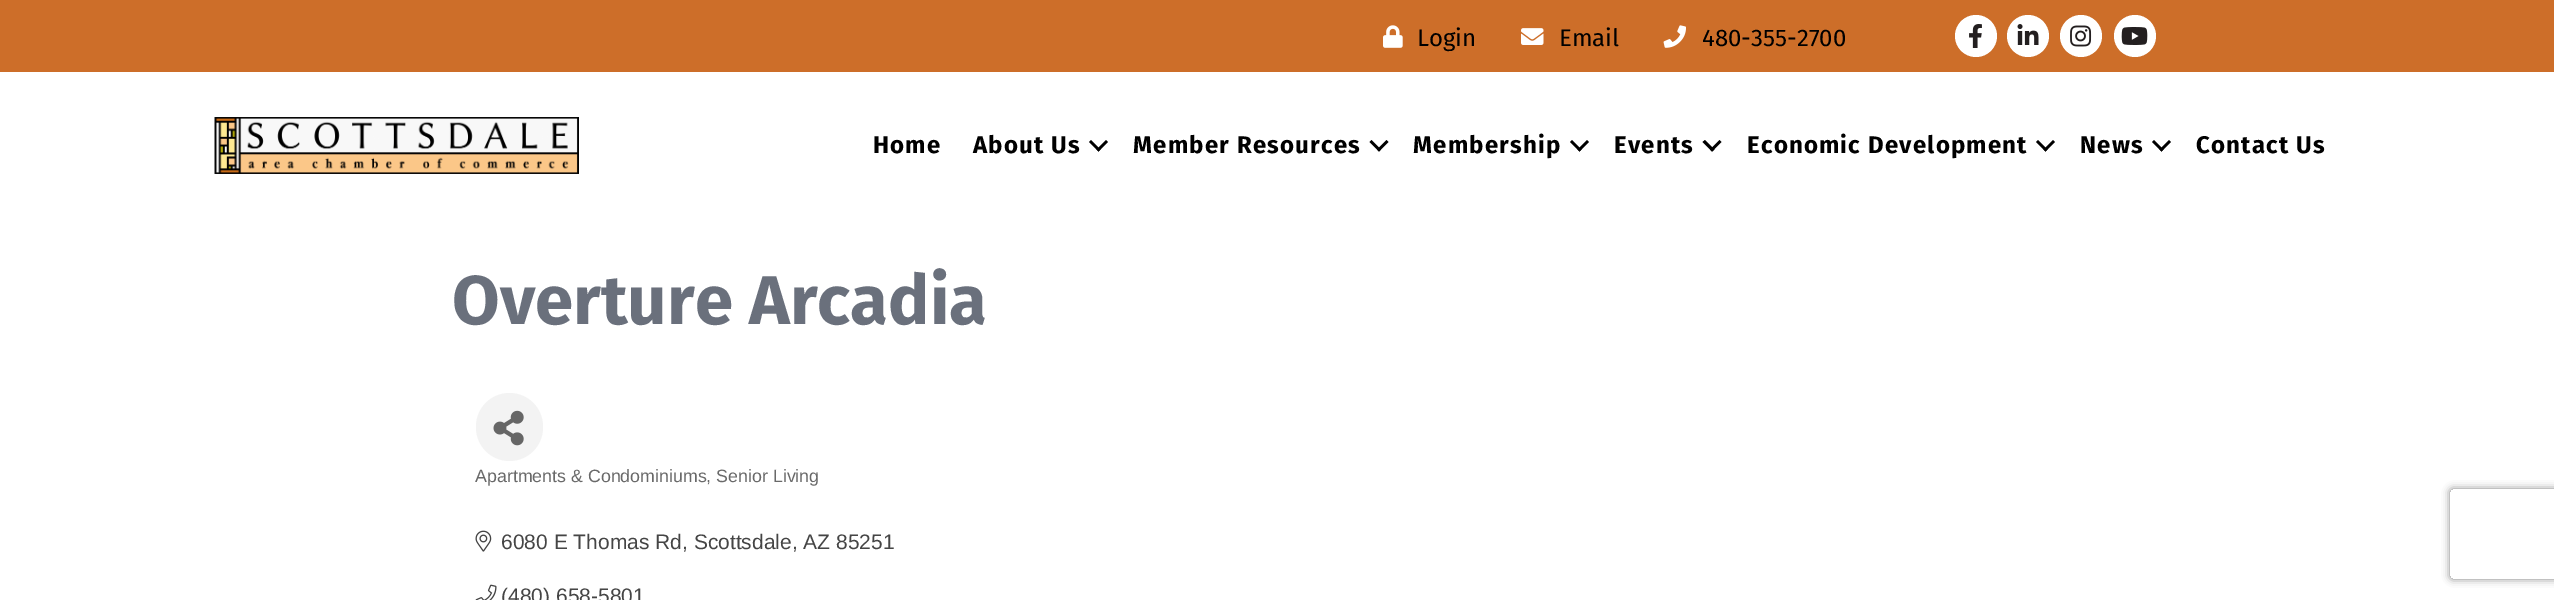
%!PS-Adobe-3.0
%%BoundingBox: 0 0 2554 600
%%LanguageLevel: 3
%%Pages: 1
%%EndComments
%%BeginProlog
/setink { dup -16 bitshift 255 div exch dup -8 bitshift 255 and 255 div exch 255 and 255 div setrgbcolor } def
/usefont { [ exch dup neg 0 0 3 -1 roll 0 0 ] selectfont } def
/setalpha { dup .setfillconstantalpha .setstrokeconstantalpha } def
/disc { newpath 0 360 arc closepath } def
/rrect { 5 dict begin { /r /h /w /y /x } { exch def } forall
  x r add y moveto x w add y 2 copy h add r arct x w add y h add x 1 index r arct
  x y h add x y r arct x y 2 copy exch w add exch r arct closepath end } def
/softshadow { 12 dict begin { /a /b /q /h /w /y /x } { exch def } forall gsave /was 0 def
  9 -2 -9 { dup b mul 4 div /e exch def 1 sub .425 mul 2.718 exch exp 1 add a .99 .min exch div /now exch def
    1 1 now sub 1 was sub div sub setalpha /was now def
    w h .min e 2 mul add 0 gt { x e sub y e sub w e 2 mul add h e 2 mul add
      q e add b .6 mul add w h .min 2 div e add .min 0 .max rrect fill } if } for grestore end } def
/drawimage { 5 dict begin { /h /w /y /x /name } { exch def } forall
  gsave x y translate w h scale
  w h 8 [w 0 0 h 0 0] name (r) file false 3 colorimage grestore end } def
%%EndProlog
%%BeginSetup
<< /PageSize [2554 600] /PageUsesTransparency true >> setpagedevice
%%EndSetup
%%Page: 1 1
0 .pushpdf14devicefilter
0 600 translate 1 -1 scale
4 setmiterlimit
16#FFFFFF setink
0 0 2554 600 rectfill
16#CD6E29 setink
0 0 2554 72 rectfill
(img1.raw) 1383 25 20 23 drawimage
/FiraSans-Regular 24 usefont
16#000000 setink
1417 46 moveto (Login) show
(img2.raw) 1521 28 23 17 drawimage
1559 46 moveto (Email) show
(img3.raw) 1663 25 23 23 drawimage
1702 46 moveto (480-355-2700) show
16#FFFFFF setink
1976 36 21 disc fill
(img4.raw) 1969 24 13 24 drawimage
2028 36 21 disc fill
(img5.raw) 2017 24 22 21 drawimage
2081 36 21 disc fill
(img6.raw) 2070 25 22 22 drawimage
2135 36 21 disc fill
(img7.raw) 2121 27 27 18 drawimage
(img8.raw) 214 117 365 57 drawimage
/FiraSans-Bold 24 usefont
16#000000 setink
873 153 moveto 1.2 0 (Home) ashow
973 153 moveto 1.2 0 (About Us) ashow
1106 140 moveto 1108 142 lineto 1098.5 151.5 lineto 1096.5 149.5 lineto closepath fill
1091 140 moveto 1100.5 149.5 lineto 1098.5 151.5 lineto 1089 142 lineto closepath fill
1133 153 moveto 1.2 0 (Member Resources) ashow
1386.5 140 moveto 1388.5 142 lineto 1379 151.5 lineto 1377 149.5 lineto closepath fill
1371.5 140 moveto 1381 149.5 lineto 1379 151.5 lineto 1369.5 142 lineto closepath fill
1413 153 moveto 1.2 0 (Membership) ashow
1587 140 moveto 1589 142 lineto 1579.5 151.5 lineto 1577.5 149.5 lineto closepath fill
1572 140 moveto 1581.5 149.5 lineto 1579.5 151.5 lineto 1570 142 lineto closepath fill
1614 153 moveto 1.2 0 (Events) ashow
1719.5 140 moveto 1721.5 142 lineto 1712 151.5 lineto 1710 149.5 lineto closepath fill
1705 140 moveto 1714.5 149.5 lineto 1712 151.5 lineto 1702.5 142 lineto closepath fill
1747 153 moveto 1.2 0 (Economic Development) ashow
2053 140 moveto 2055 142 lineto 2045.5 151.5 lineto 2043.5 149.5 lineto closepath fill
2038 140 moveto 2047.5 149.5 lineto 2045.5 151.5 lineto 2036 142 lineto closepath fill
2080 153 moveto 1.2 0 (News) ashow
2169 140 moveto 2171 142 lineto 2161.5 151.5 lineto 2159.5 149.5 lineto closepath fill
2154 140 moveto 2163.5 149.5 lineto 2161.5 151.5 lineto 2152 142 lineto closepath fill
2196 153 moveto 1.2 0 (Contact Us) ashow
/FiraSans-Bold 69 usefont
16#6A707C setink
452 324 moveto (Overture Arcadia) show
16#F3F3F3 setink
476 393 67 68 33.5 rrect fill
(img9.raw) 493 410 31 36 drawimage
/LiberationSans-Regular 17.8 usefont
16#696969 setink
475 482 moveto (Apartments & Condominiums, Senior Living) show
(img10.raw) 475 530 17 22 drawimage
/LiberationSans-Regular 21 usefont
16#454545 setink
501 549 moveto (6080 E Thomas Rd, Scottsdale, AZ 85251) show
(img11.raw) 475 584 22 16 drawimage
501 603 moveto (\(480\) 658-5801) show
gsave
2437 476 moveto 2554 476 lineto 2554 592 lineto 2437 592 lineto closepath 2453 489 moveto 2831 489 lineto 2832.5 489 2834 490.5 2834 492 curveto 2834 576 lineto 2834 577.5 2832.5 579 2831 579 curveto 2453 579 lineto 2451.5 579 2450 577.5 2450 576 curveto 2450 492 lineto 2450 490.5 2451.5 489 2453 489 curveto closepath eoclip newpath
16#808080 setink
2450 489 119 90 3 4 1 softshadow
grestore
.poppdf14devicefilter showpage
%%EOF
